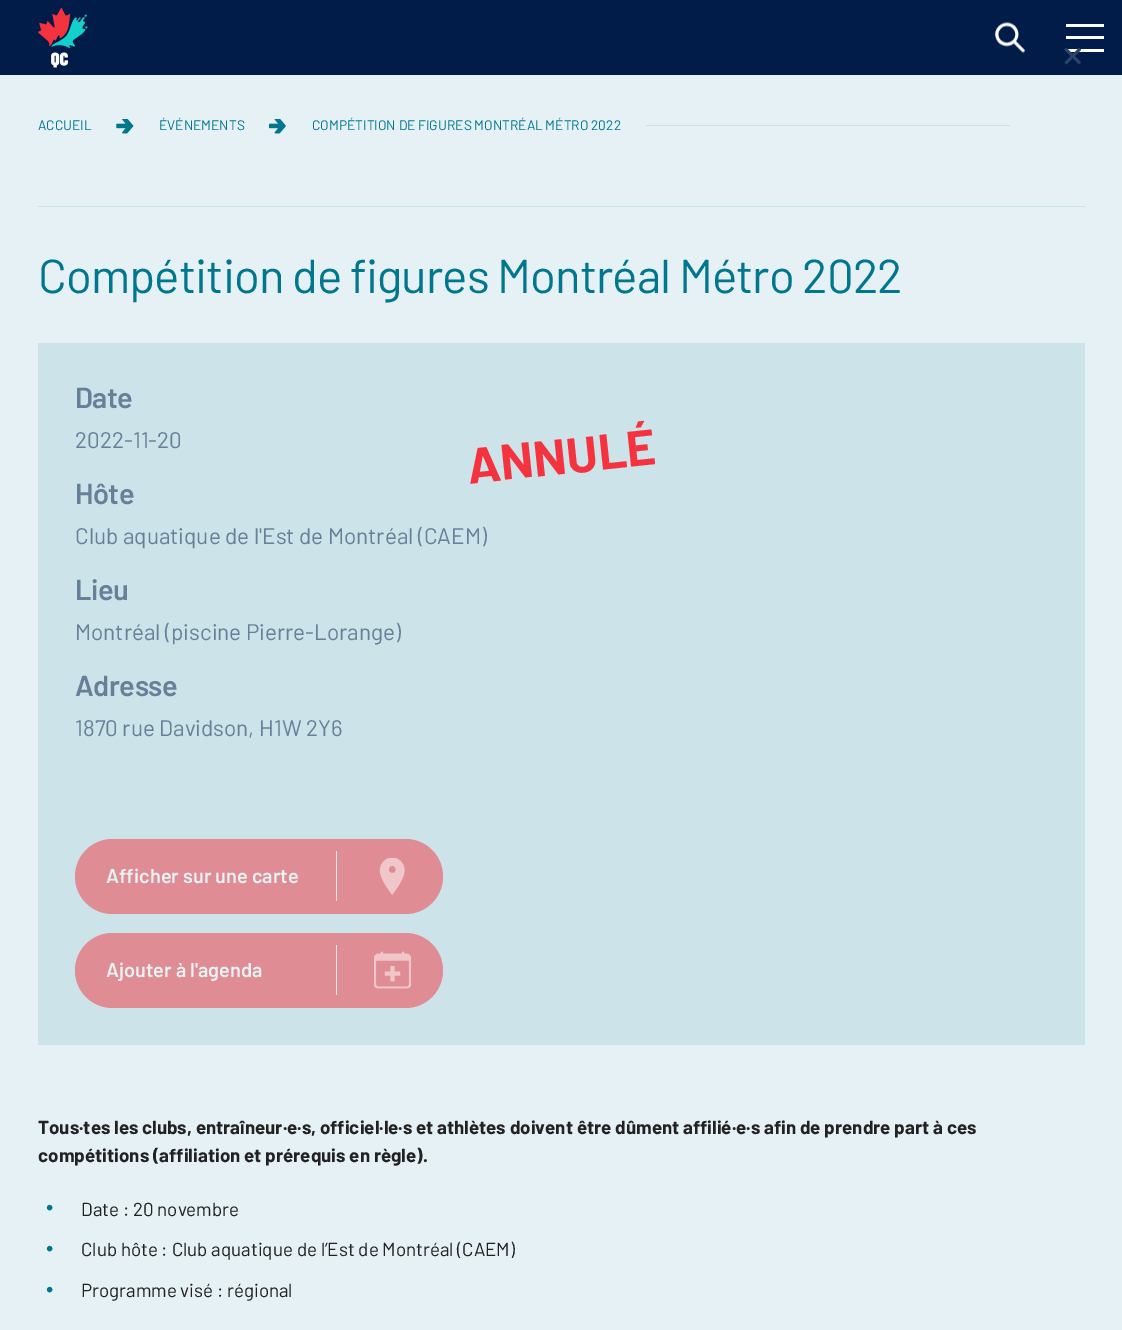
%!PS-Adobe-3.0
%%BoundingBox: 0 0 1122 1330
%%LanguageLevel: 3
%%Pages: 1
%%EndComments
%%BeginProlog
/setink { dup -16 bitshift 255 div exch dup -8 bitshift 255 and 255 div exch 255 and 255 div setrgbcolor } def
/usefont { [ exch dup neg 0 0 3 -1 roll 0 0 ] selectfont } def
/rrect { 5 dict begin { /r /h /w /y /x } { exch def } forall
  x r add y moveto x w add y 2 copy h add r arct x w add y h add x 1 index r arct
  x y h add x y r arct x y 2 copy exch w add exch r arct closepath end } def
/drawimage { 5 dict begin { /h /w /y /x /name } { exch def } forall
  gsave x y translate w h scale
  w h 8 [w 0 0 h 0 0] name (r) file false 3 colorimage grestore end } def
%%EndProlog
%%BeginSetup
<< /PageSize [1122 1330] >> setpagedevice
%%EndSetup
%%Page: 1 1
0 1330 translate 1 -1 scale
4 setmiterlimit
16#E5F1F4 setink
0 0 1122 1330 rectfill
16#011C48 setink
0 0 1122 75 rectfill
(img1.raw) 38 8 50 60 drawimage
[
    [1066 24 38 3 16#FFFFFF]
    [1066 36 38 3 16#FFFFFF]
    [1066 49 38 3 16#FFFFFF]
] { aload pop setink rectfill } forall
(img2.raw) 995 22 30 31 drawimage
/Barlow-Regular 50 usefont
16#2D4368 setink
gsave 1075 76 translate -45 rotate 0 0 moveto (+) show grestore
/Barlow-Regular 13.75 usefont
16#00768F setink
38 130 moveto (ACCUEIL) show
(img3.raw) 116 119 18 15 drawimage
159 130 moveto (ÉVÉNEMENTS) show
(img4.raw) 269 119 17 15 drawimage
312 130 moveto (COMPÉTITION DE FIGURES MONTRÉAL MÉTRO 2022) show
16#CCE4E9 setink
646 125 364 1 rectfill
38 206 1047 1 rectfill
/Barlow-Regular 47.5 usefont
16#00768F setink
38 293 moveto -0.95 0 (Compétition de figures Montréal Métro 2022) ashow
16#CCE4E9 setink
38 343 1047 702 rectfill
/Barlow-SemiBold 29 usefont
16#678099 setink
75 408 moveto -0.5 0 (Date) ashow
/Barlow-Regular 22.5 usefont
75 448 moveto (2022-11-20) show
/Barlow-Bold 50 usefont
16#F4333F setink
gsave 469 484 translate -6 rotate 0 0 moveto (ANNULÉ) show grestore
/Barlow-SemiBold 29 usefont
16#678099 setink
75 504 moveto -0.5 0 (Hôte) ashow
/Barlow-Regular 22.5 usefont
75 544 moveto (Club aquatique de l'Est de Montréal \(CAEM\)) show
/Barlow-SemiBold 29 usefont
75 600 moveto -0.5 0 (Lieu) ashow
/Barlow-Regular 22.5 usefont
75 640 moveto (Montréal \(piscine Pierre-Lorange\)) show
/Barlow-SemiBold 29 usefont
75 696 moveto -0.5 0 (Adresse) ashow
/Barlow-Regular 22.5 usefont
75 736 moveto (1870 rue Davidson, H1W 2Y6) show
16#E08C94 setink
75 839 368 75 37.5 rrect fill
/Barlow-SemiBold 20 usefont
16#E6F2F4 setink
106 883 moveto (Afficher sur une carte) show
16#D1E7EB setink
336 851 1 50 rectfill
(img5.raw) 379 857 26 38 drawimage
16#E08C94 setink
75 933 368 75 37.5 rrect fill
16#E6F2F4 setink
106 977 moveto (Ajouter à l'agenda) show
16#D1E7EB setink
336 945 1 50 rectfill
(img6.raw) 374 951 37 38 drawimage
/Barlow-Bold 18.75 usefont
16#222222 setink
38 1134 moveto (Tous·tes les clubs, entraîneur·e·s, officiel·le·s et athlètes doivent être dûment affilié·e·s afin de prendre part à ces) show
38 1162 moveto (compétitions \(affiliation et prérequis en règle\).) show
/Barlow-Regular 24 usefont
16#00768F setink
46 1214 moveto (•) show
/Barlow-Regular 18.75 usefont
16#222222 setink
81 1216 moveto (Date : 20 novembre) show
/Barlow-Regular 24 usefont
16#00768F setink
46 1255 moveto (•) show
/Barlow-Regular 18.75 usefont
16#222222 setink
81 1256 moveto (Club hôte : Club aquatique de l’Est de Montréal \(CAEM\)) show
/Barlow-Regular 24 usefont
16#00768F setink
46 1296 moveto (•) show
/Barlow-Regular 18.75 usefont
16#222222 setink
81 1297 moveto (Programme visé : régional) show
showpage
%%EOF
